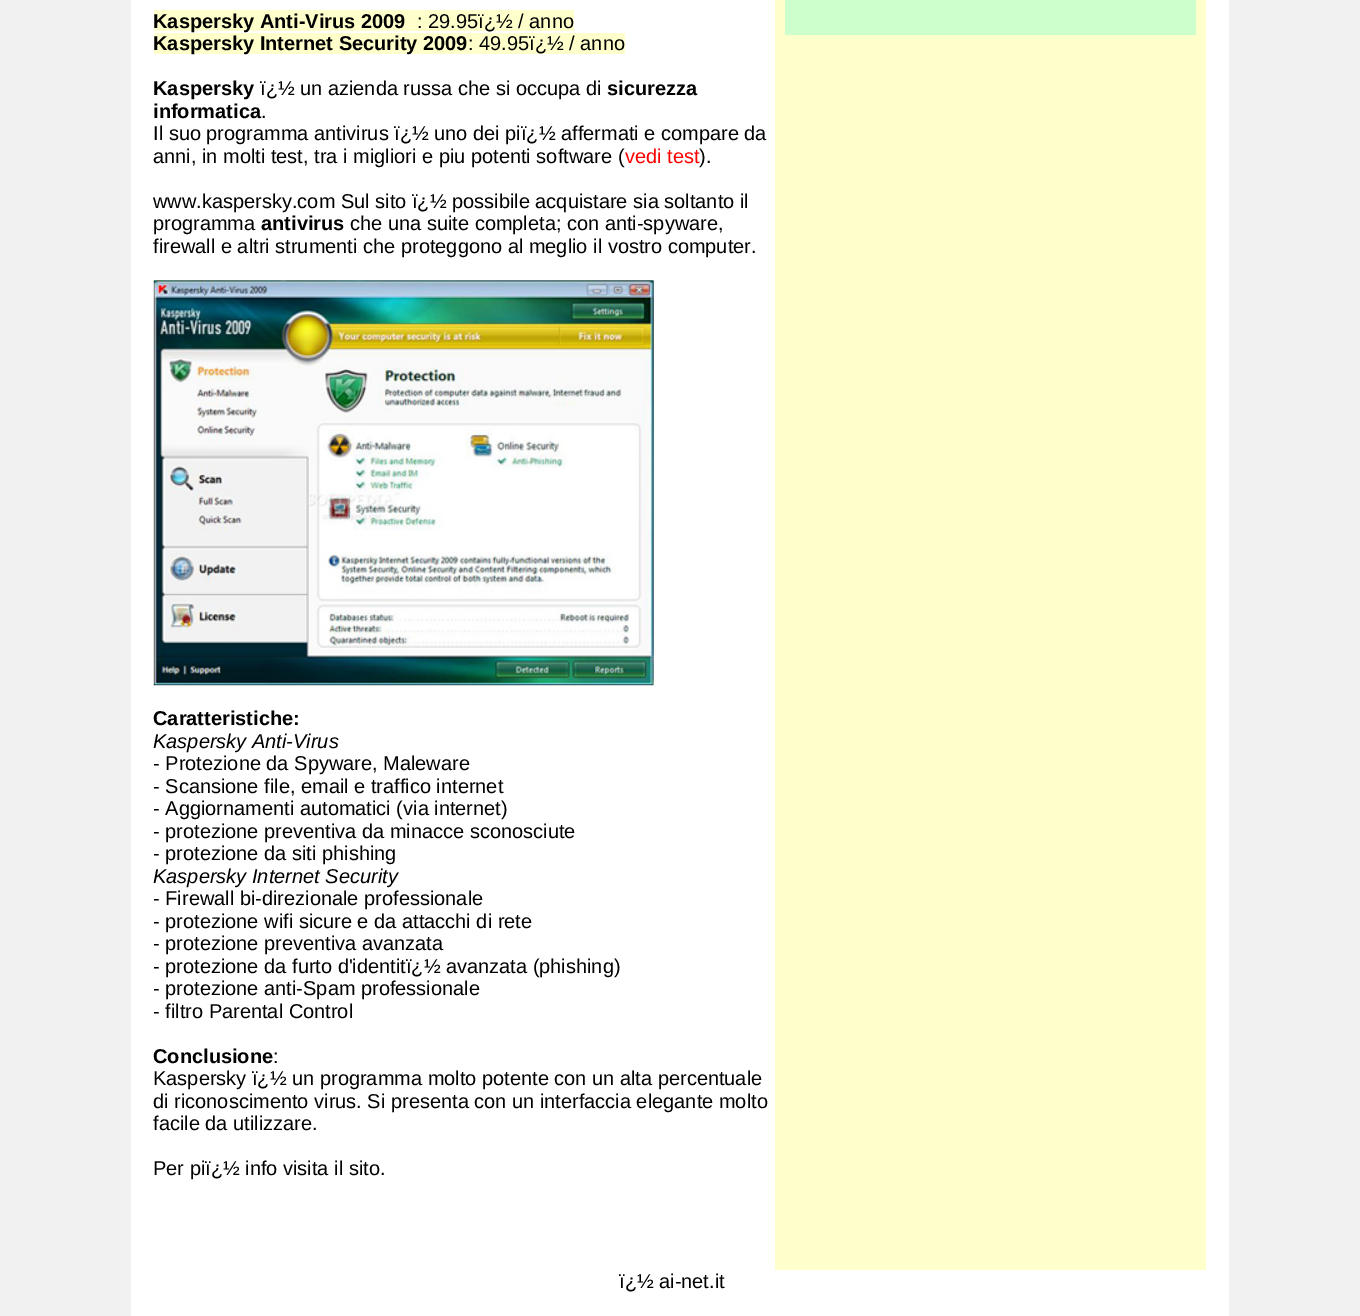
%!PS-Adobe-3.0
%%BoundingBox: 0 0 1360 1316
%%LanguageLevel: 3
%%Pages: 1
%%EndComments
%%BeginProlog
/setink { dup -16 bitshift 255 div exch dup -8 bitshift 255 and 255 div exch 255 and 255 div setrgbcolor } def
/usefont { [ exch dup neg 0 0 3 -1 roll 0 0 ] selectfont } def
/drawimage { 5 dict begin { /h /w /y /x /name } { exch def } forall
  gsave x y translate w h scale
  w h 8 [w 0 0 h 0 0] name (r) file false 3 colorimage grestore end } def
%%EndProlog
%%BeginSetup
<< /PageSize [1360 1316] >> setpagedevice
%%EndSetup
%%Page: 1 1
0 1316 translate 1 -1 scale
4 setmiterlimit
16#F1F1F1 setink
0 0 1360 1316 rectfill
16#FFFFFF setink
131 0 1098 1316 rectfill
16#FFFFCC setink
154 10 420 21 rectfill
/LiberationSans-Bold 20 usefont
16#000000 setink
153 28 moveto (Kaspersky Anti-Virus 2009) show
/LiberationSans-Regular 20 usefont
417 28 moveto (: 29.95ï¿½ / anno) show
16#FFFFCC setink
154 33 471 21 rectfill
/LiberationSans-Bold 20 usefont
16#000000 setink
153 50 moveto (Kaspersky Internet Security 2009) show
/LiberationSans-Regular 20 usefont
468 50 moveto (: 49.95ï¿½ / anno) show
/LiberationSans-Bold 20 usefont
153 95 moveto (Kaspersky) show
/LiberationSans-Regular 20 usefont
260 95 moveto (ï¿½ un azienda russa che si occupa di) show
/LiberationSans-Bold 20 usefont
607 95 moveto (sicurezza) show
153 118 moveto (informatica) show
/LiberationSans-Regular 20 usefont
[
    [(.) 261 118]
    [(Il suo programma antivirus ï¿½ uno dei piï¿½ affermati e compare da) 153 140]
    [(anni, in molti test, tra i migliori e piu potenti software \() 153 163]
] { aload pop moveto show } forall
16#FF0000 setink
625 163 moveto (vedi test) show
16#000000 setink
[
    [(\).) 699 163]
    [(www.kaspersky.com Sul sito ï¿½ possibile acquistare sia soltanto il) 153 208]
    [(programma) 153 230]
] { aload pop moveto show } forall
/LiberationSans-Bold 20 usefont
261 230 moveto (antivirus) show
/LiberationSans-Regular 20 usefont
350 230 moveto (che una suite completa; con anti-spyware,) show
153 253 moveto (firewall e altri strumenti che proteggono al meglio il vostro computer.) show
(img1.raw) 153 280 501 406 drawimage
/LiberationSans-Bold 20 usefont
153 725 moveto (Caratteristiche:) show
/LiberationSans-Italic 20 usefont
153 748 moveto (Kaspersky Anti-Virus) show
/LiberationSans-Regular 20 usefont
[
    [(- Protezione da Spyware, Maleware) 153 770]
    [(- Scansione file, email e traffico internet) 153 793]
    [(- Aggiornamenti automatici \(via internet\)) 153 815]
    [(- protezione preventiva da minacce sconosciute) 153 838]
    [(- protezione da siti phishing) 153 860]
] { aload pop moveto show } forall
/LiberationSans-Italic 20 usefont
153 883 moveto (Kaspersky Internet Security) show
/LiberationSans-Regular 20 usefont
[
    [(- Firewall bi-direzionale professionale) 153 905]
    [(- protezione wifi sicure e da attacchi di rete) 153 928]
    [(- protezione preventiva avanzata) 153 950]
    [(- protezione da furto d'identitï¿½ avanzata \(phishing\)) 153 973]
    [(- protezione anti-Spam professionale) 153 995]
    [(- filtro Parental Control) 153 1018]
] { aload pop moveto show } forall
/LiberationSans-Bold 20 usefont
153 1063 moveto (Conclusione) show
/LiberationSans-Regular 20 usefont
[
    [(:) 273 1063]
    [(Kaspersky ï¿½ un programma molto potente con un alta percentuale) 153 1085]
    [(di riconoscimento virus. Si presenta con un interfaccia elegante molto) 153 1108]
    [(facile da utilizzare.) 153 1130]
    [(Per piï¿½ info visita il sito.) 153 1175]
] { aload pop moveto show } forall
16#FFFFCC setink
775 0 431 1270 rectfill
16#CCFFCC setink
785 0 411 35 rectfill
16#000000 setink
619 1288 moveto (ï¿½ ai-net.it) show
showpage
%%EOF
